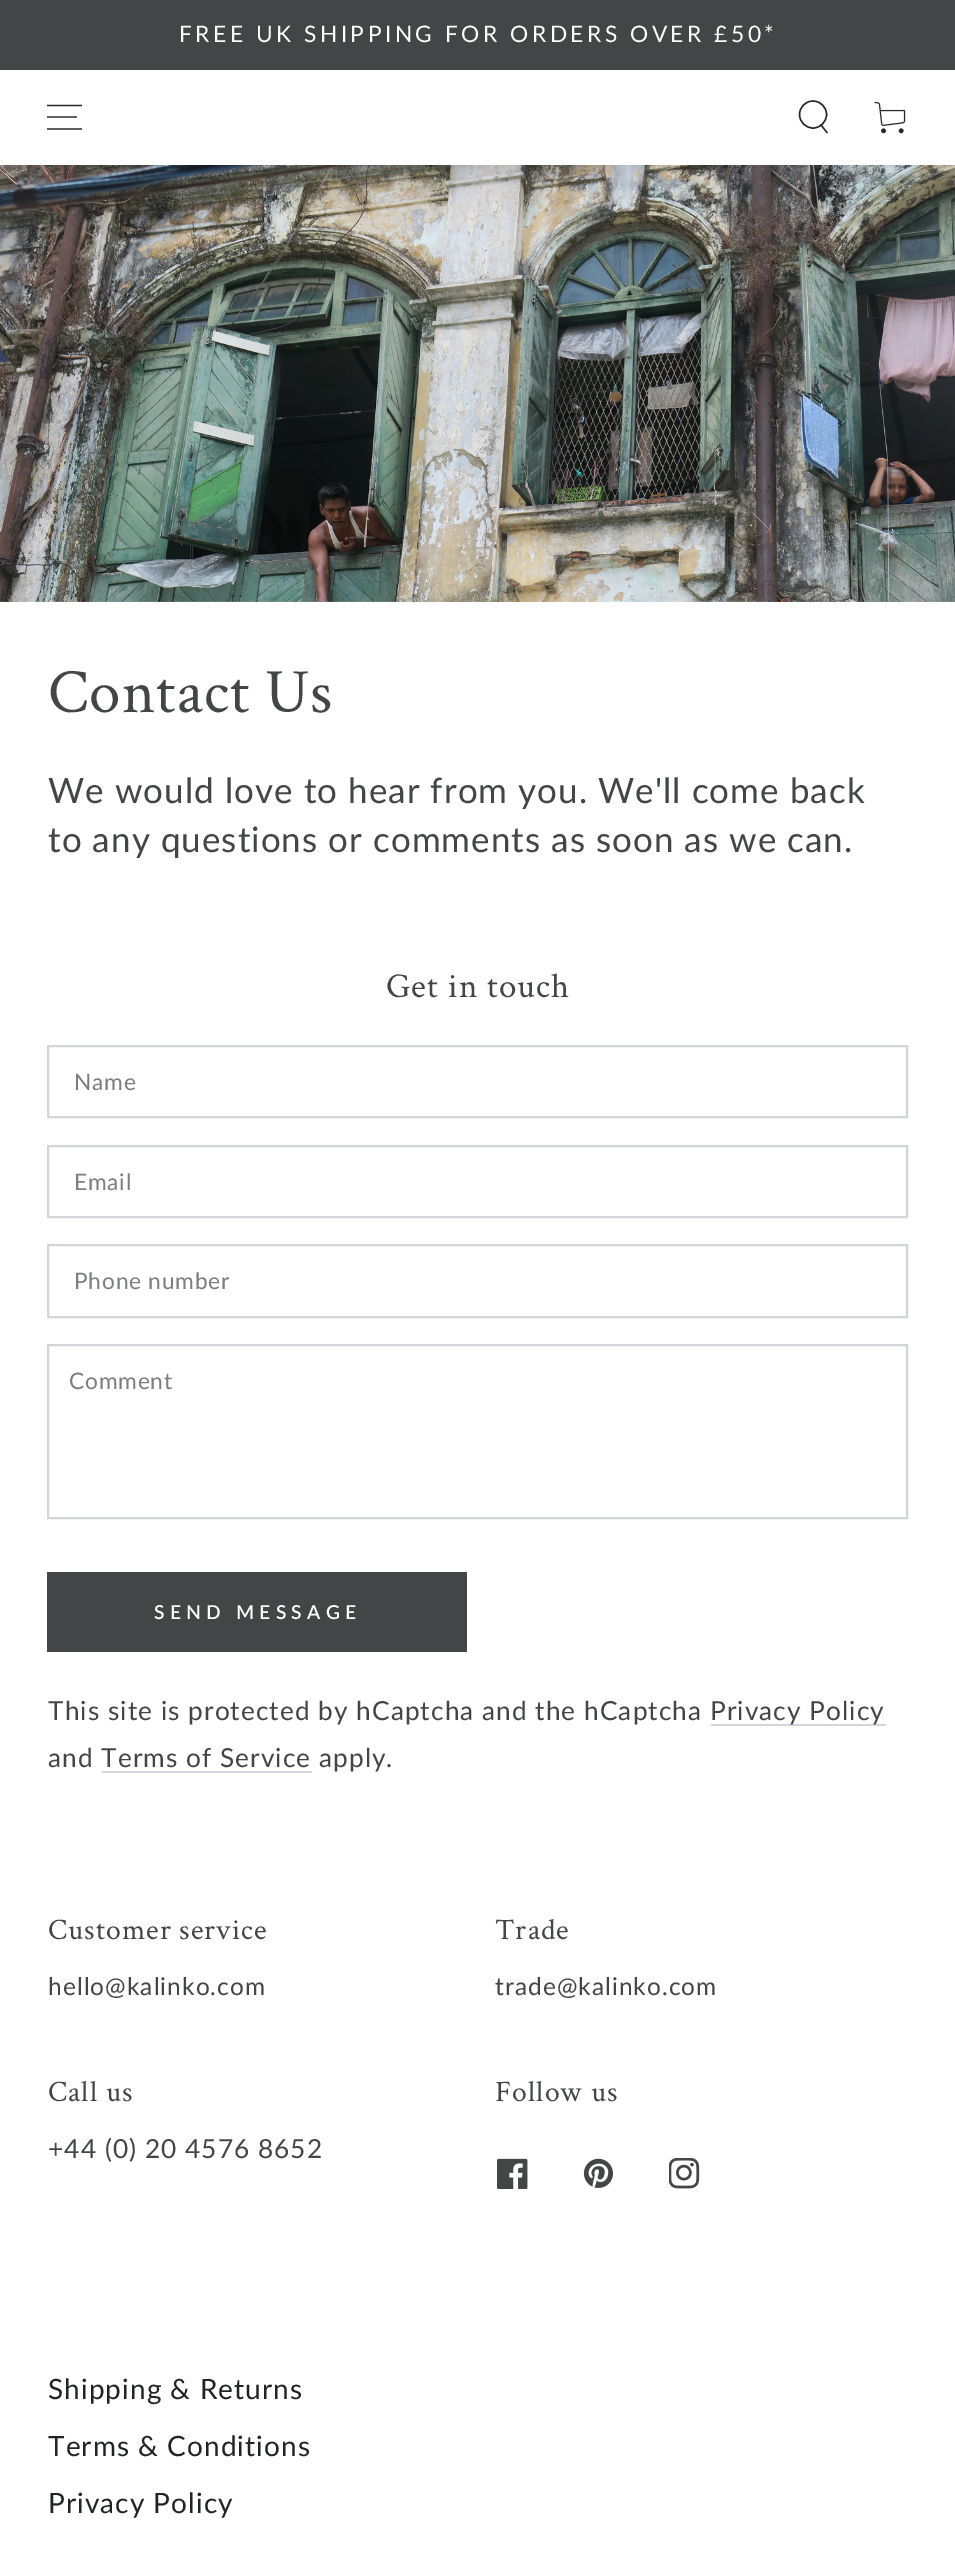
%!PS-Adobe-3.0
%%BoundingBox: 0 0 955 2563
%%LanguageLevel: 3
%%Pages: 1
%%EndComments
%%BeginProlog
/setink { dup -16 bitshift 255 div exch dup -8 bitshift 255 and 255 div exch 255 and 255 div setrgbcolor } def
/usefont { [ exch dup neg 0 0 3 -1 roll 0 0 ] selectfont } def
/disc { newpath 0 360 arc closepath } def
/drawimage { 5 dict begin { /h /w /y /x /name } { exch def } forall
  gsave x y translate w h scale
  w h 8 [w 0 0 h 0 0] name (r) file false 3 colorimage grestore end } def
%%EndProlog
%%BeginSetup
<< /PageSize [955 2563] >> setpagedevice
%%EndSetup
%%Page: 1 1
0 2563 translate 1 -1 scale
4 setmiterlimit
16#FFFFFF setink
0 0 955 2563 rectfill
16#444546 setink
0 0 955 70 rectfill
/Lato-Regular 22.75 usefont
16#FFFFFF setink
179 42 moveto 3.5 0 (FREE UK SHIPPING FOR ORDERS OVER £50*) ashow
16#282828 setink
1.3 setlinewidth
47 129 moveto 82 129 lineto 47 117 moveto 77 117 lineto 47 105.5 moveto 82 105.5 lineto stroke
1.4 setlinewidth
813 114.5 13.5 disc stroke
1 setlinecap
821 125 moveto 827 132.5 lineto stroke
(img1.raw) 874 101 32 33 drawimage
(img2.raw) 0 165 955 437 drawimage
/CrimsonText-Regular 63 usefont
16#444546 setink
48 712 moveto 1.05 0 (Contact Us) ashow
/Lato-Regular 35 usefont
48 803 moveto 1.05 0 (We would love to hear from you. We'll come back) ashow
48 852 moveto 1.05 0 (to any questions or comments as soon as we can.) ashow
/CrimsonText-Regular 35 usefont
386 997 moveto 1.05 0 (Get in touch) ashow
16#D2D5D9 setink
2 setlinewidth
0 setlinecap
48 1046 859 71 rectstroke
/Lato-Regular 22.75 usefont
16#7C7D7E setink
74 1090 moveto 0.75 0 (Name) ashow
16#D2D5D9 setink
48 1146 859 71 rectstroke
16#7C7D7E setink
74 1190 moveto 0.75 0 (Email) ashow
16#D2D5D9 setink
48 1245 859 72 rectstroke
16#7C7D7E setink
74 1289 moveto 0.75 0 (Phone number) ashow
16#D2D5D9 setink
48 1345 859 173 rectstroke
16#7C7D7E setink
69 1389 moveto 0.75 0 (Comment) ashow
16#444546 setink
47 1572 420 80 rectfill
/Lato-SemiBold 19.25 usefont
16#FFFFFF setink
154 1619 moveto 5.25 0 (SEND MESSAGE) ashow
/Lato-Regular 26.25 usefont
16#444546 setink
48 1720 moveto 1.05 0 (This site is protected by hCaptcha and the hCaptcha) ashow
16#D2D5D9 setink
711 1724 175 2 rectfill
16#444546 setink
710 1720 moveto 1.05 0 (Privacy Policy) ashow
48 1767 moveto 1.05 0 (and Terms of Service) ashow
319 1767 moveto 1.05 0 (apply.) ashow
16#D2D5D9 setink
102 1771 210 2 rectfill
/CrimsonText-Regular 29.75 usefont
16#444546 setink
48 1939 moveto 1.05 0 (Customer service) ashow
/Lato-Regular 24.5 usefont
48 1995 moveto 1.05 0 (hello@kalinko.com) ashow
/CrimsonText-Regular 29.75 usefont
495 1939 moveto 1.05 0 (Trade) ashow
/Lato-Regular 24.5 usefont
495 1995 moveto 1.05 0 (trade@kalinko.com) ashow
/CrimsonText-Regular 29.75 usefont
48 2101 moveto 1.05 0 (Call us) ashow
/Lato-Regular 26.25 usefont
48 2158 moveto 1.05 0 (+44 \(0\) 20 4576 8652) ashow
/CrimsonText-Regular 29.75 usefont
495 2101 moveto 1.05 0 (Follow us) ashow
(img3.raw) 497 2158 31 31 drawimage
(img4.raw) 583 2158 30 30 drawimage
(img5.raw) 669 2158 31 31 drawimage
/Lato-Regular 28 usefont
16#212326 setink
48 2399 moveto 1.05 0 (Shipping & Returns) ashow
48 2456 moveto 1.05 0 (Terms & Conditions) ashow
48 2513 moveto 1.05 0 (Privacy Policy) ashow
showpage
%%EOF
